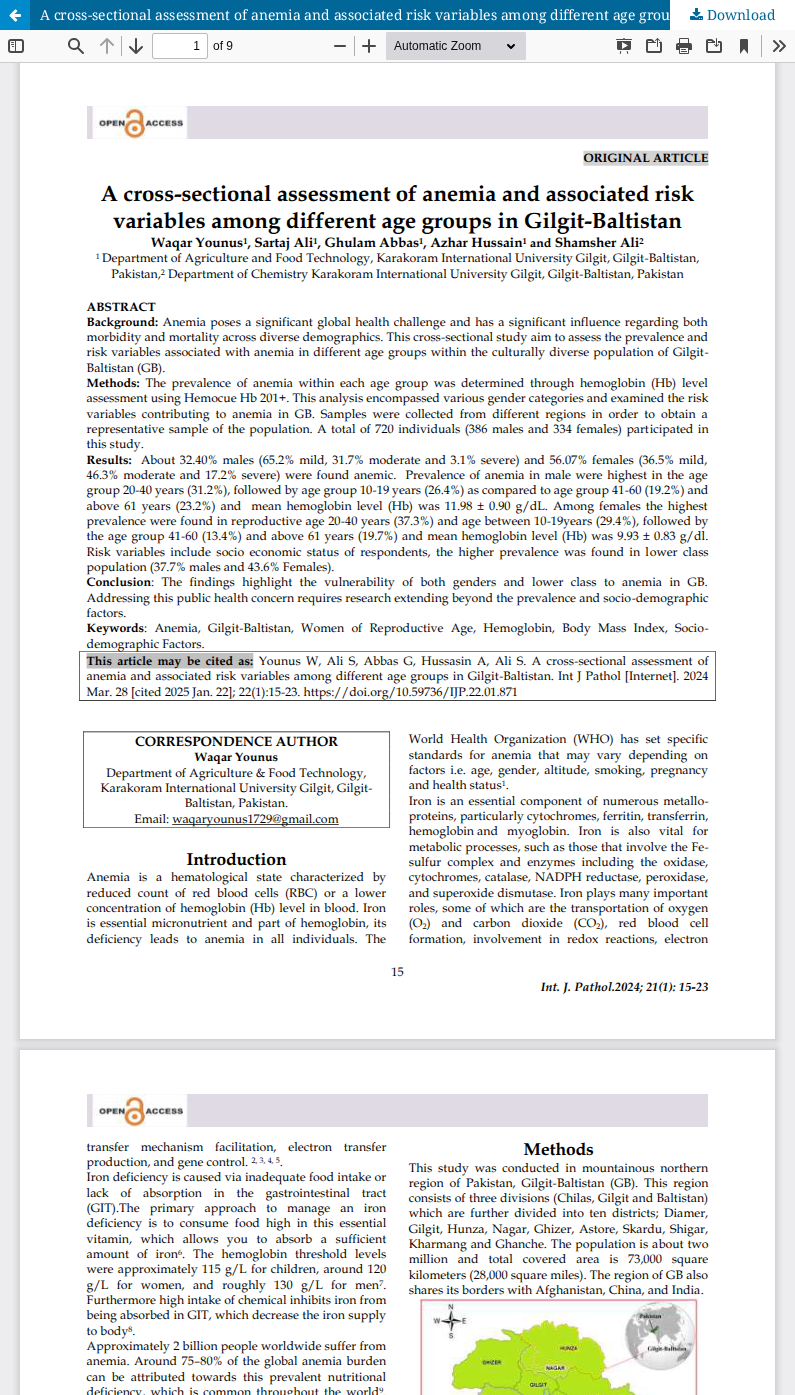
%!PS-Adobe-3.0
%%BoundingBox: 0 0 795 1395
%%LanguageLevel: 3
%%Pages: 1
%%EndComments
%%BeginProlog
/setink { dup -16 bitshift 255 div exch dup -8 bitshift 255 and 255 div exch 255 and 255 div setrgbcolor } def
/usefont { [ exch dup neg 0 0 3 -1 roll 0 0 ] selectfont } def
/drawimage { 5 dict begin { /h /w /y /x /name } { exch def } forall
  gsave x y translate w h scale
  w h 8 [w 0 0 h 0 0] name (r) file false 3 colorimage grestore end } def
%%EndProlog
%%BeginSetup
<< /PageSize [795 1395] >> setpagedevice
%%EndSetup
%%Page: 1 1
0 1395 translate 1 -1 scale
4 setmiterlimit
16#FFFFFF setink
0 0 795 1395 rectfill
16#006798 setink
30 0 640 30 rectfill
16#008ACB setink
0 0 30 30 rectfill
(img1.raw) 9 9 12 13 drawimage
/NotoSerif-Regular 14 usefont
16#FFFFFF setink
40 20 moveto (A cross-sectional assessment of anemia and associated risk variables among different age grou) show
(img2.raw) 690 8 13 12 drawimage
16#006798 setink
707 20 moveto (Download) show
(img3.raw) 0 30 795 1365 drawimage
showpage
%%EOF
